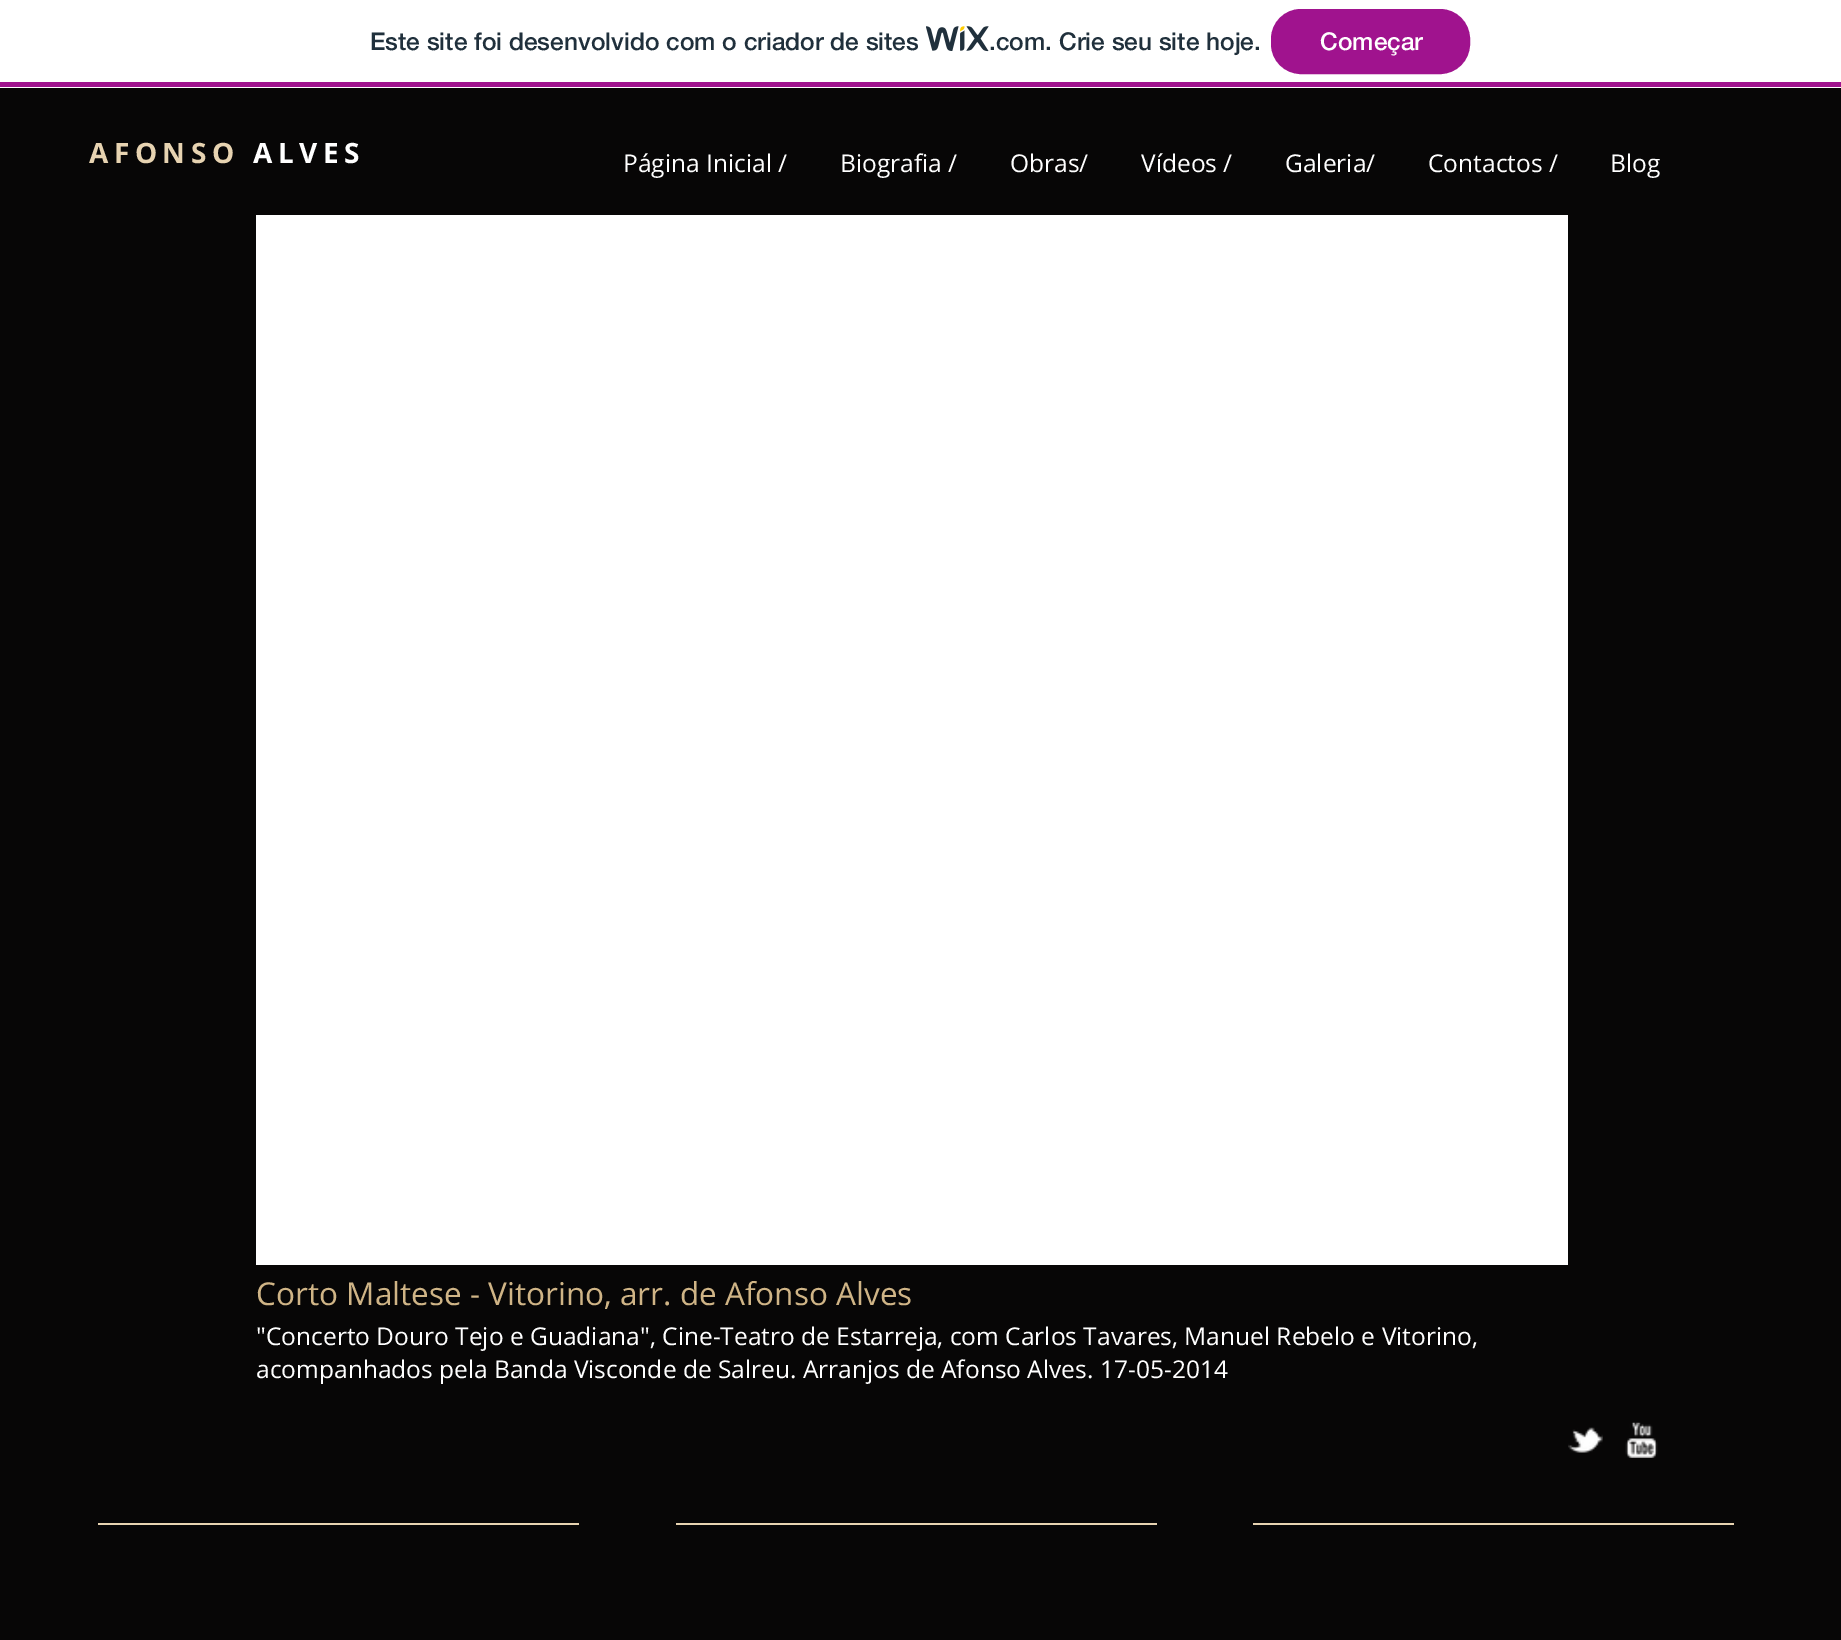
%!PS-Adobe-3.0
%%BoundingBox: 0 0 1841 1640
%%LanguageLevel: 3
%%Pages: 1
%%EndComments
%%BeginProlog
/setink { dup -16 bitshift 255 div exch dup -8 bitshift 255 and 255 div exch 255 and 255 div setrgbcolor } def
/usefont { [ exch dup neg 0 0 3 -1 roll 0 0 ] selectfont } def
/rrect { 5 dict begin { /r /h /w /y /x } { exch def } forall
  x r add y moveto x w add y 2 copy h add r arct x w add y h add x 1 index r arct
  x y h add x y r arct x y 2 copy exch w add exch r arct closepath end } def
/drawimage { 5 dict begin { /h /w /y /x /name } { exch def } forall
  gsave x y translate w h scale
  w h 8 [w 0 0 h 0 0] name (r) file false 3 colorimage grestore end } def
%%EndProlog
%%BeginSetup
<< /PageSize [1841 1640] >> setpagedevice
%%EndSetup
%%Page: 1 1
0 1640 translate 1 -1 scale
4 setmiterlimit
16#FFFFFF setink
0 0 1841 1640 rectfill
16#A0138E setink
0 82 1841 5 rectfill
/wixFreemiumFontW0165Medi-Medium 24.5 usefont
16#20303C setink
370 50 moveto (Este site foi desenvolvido com o criador de sites) show
(img1.raw) 926 26 63 26 drawimage
989 50 moveto (.com. Crie seu site hoje.) show
16#A0138E setink
1272 10 197 63 29 rrect gsave fill grestore
2 setlinewidth
stroke
16#FFFFFF setink
1320 50 moveto (Começar) show
16#070606 setink
0 88 1841 1552 rectfill
/OpenSans-Bold 28 usefont
16#E7D3B1 setink
89 163 moveto 5.5 0 (AFONSO) ashow
16#FFFFFF setink
253 163 moveto 5.5 0 (ALVES) ashow
/OpenSans-Regular 24.5 usefont
[
    [(Página Inicial /) 623 172]
    [(Biografia /) 840 172]
    [(Obras/) 1010 172]
    [(Vídeos /) 1141 172]
    [(Galeria/) 1285 172]
    [(Contactos /) 1428 172]
    [(Blog) 1610 172]
] { aload pop moveto show } forall
256 215 1312 1050 rectfill
/OpenSans-Regular 31.5 usefont
16#CFB486 setink
256 1305 moveto (Corto Maltese - Vitorino, arr. de Afonso Alves) show
/OpenSans-Regular 24.5 usefont
16#FFFFFF setink
256 1345 moveto ("Concerto Douro Tejo e Guadiana", Cine-Teatro de Estarreja, com Carlos Tavares, Manuel Rebelo e Vitorino,) show
256 1378 moveto (acompanhados pela Banda Visconde de Salreu. Arranjos de Afonso Alves. 17-05-2014) show
(img2.raw) 1568 1427 35 26 drawimage
(img3.raw) 1625 1422 33 36 drawimage
[
    [98 1523 481 2 16#E7D3B1]
    [676 1523 481 2 16#E7D3B1]
    [1253 1523 481 2 16#E7D3B1]
] { aload pop setink rectfill } forall
showpage
%%EOF
